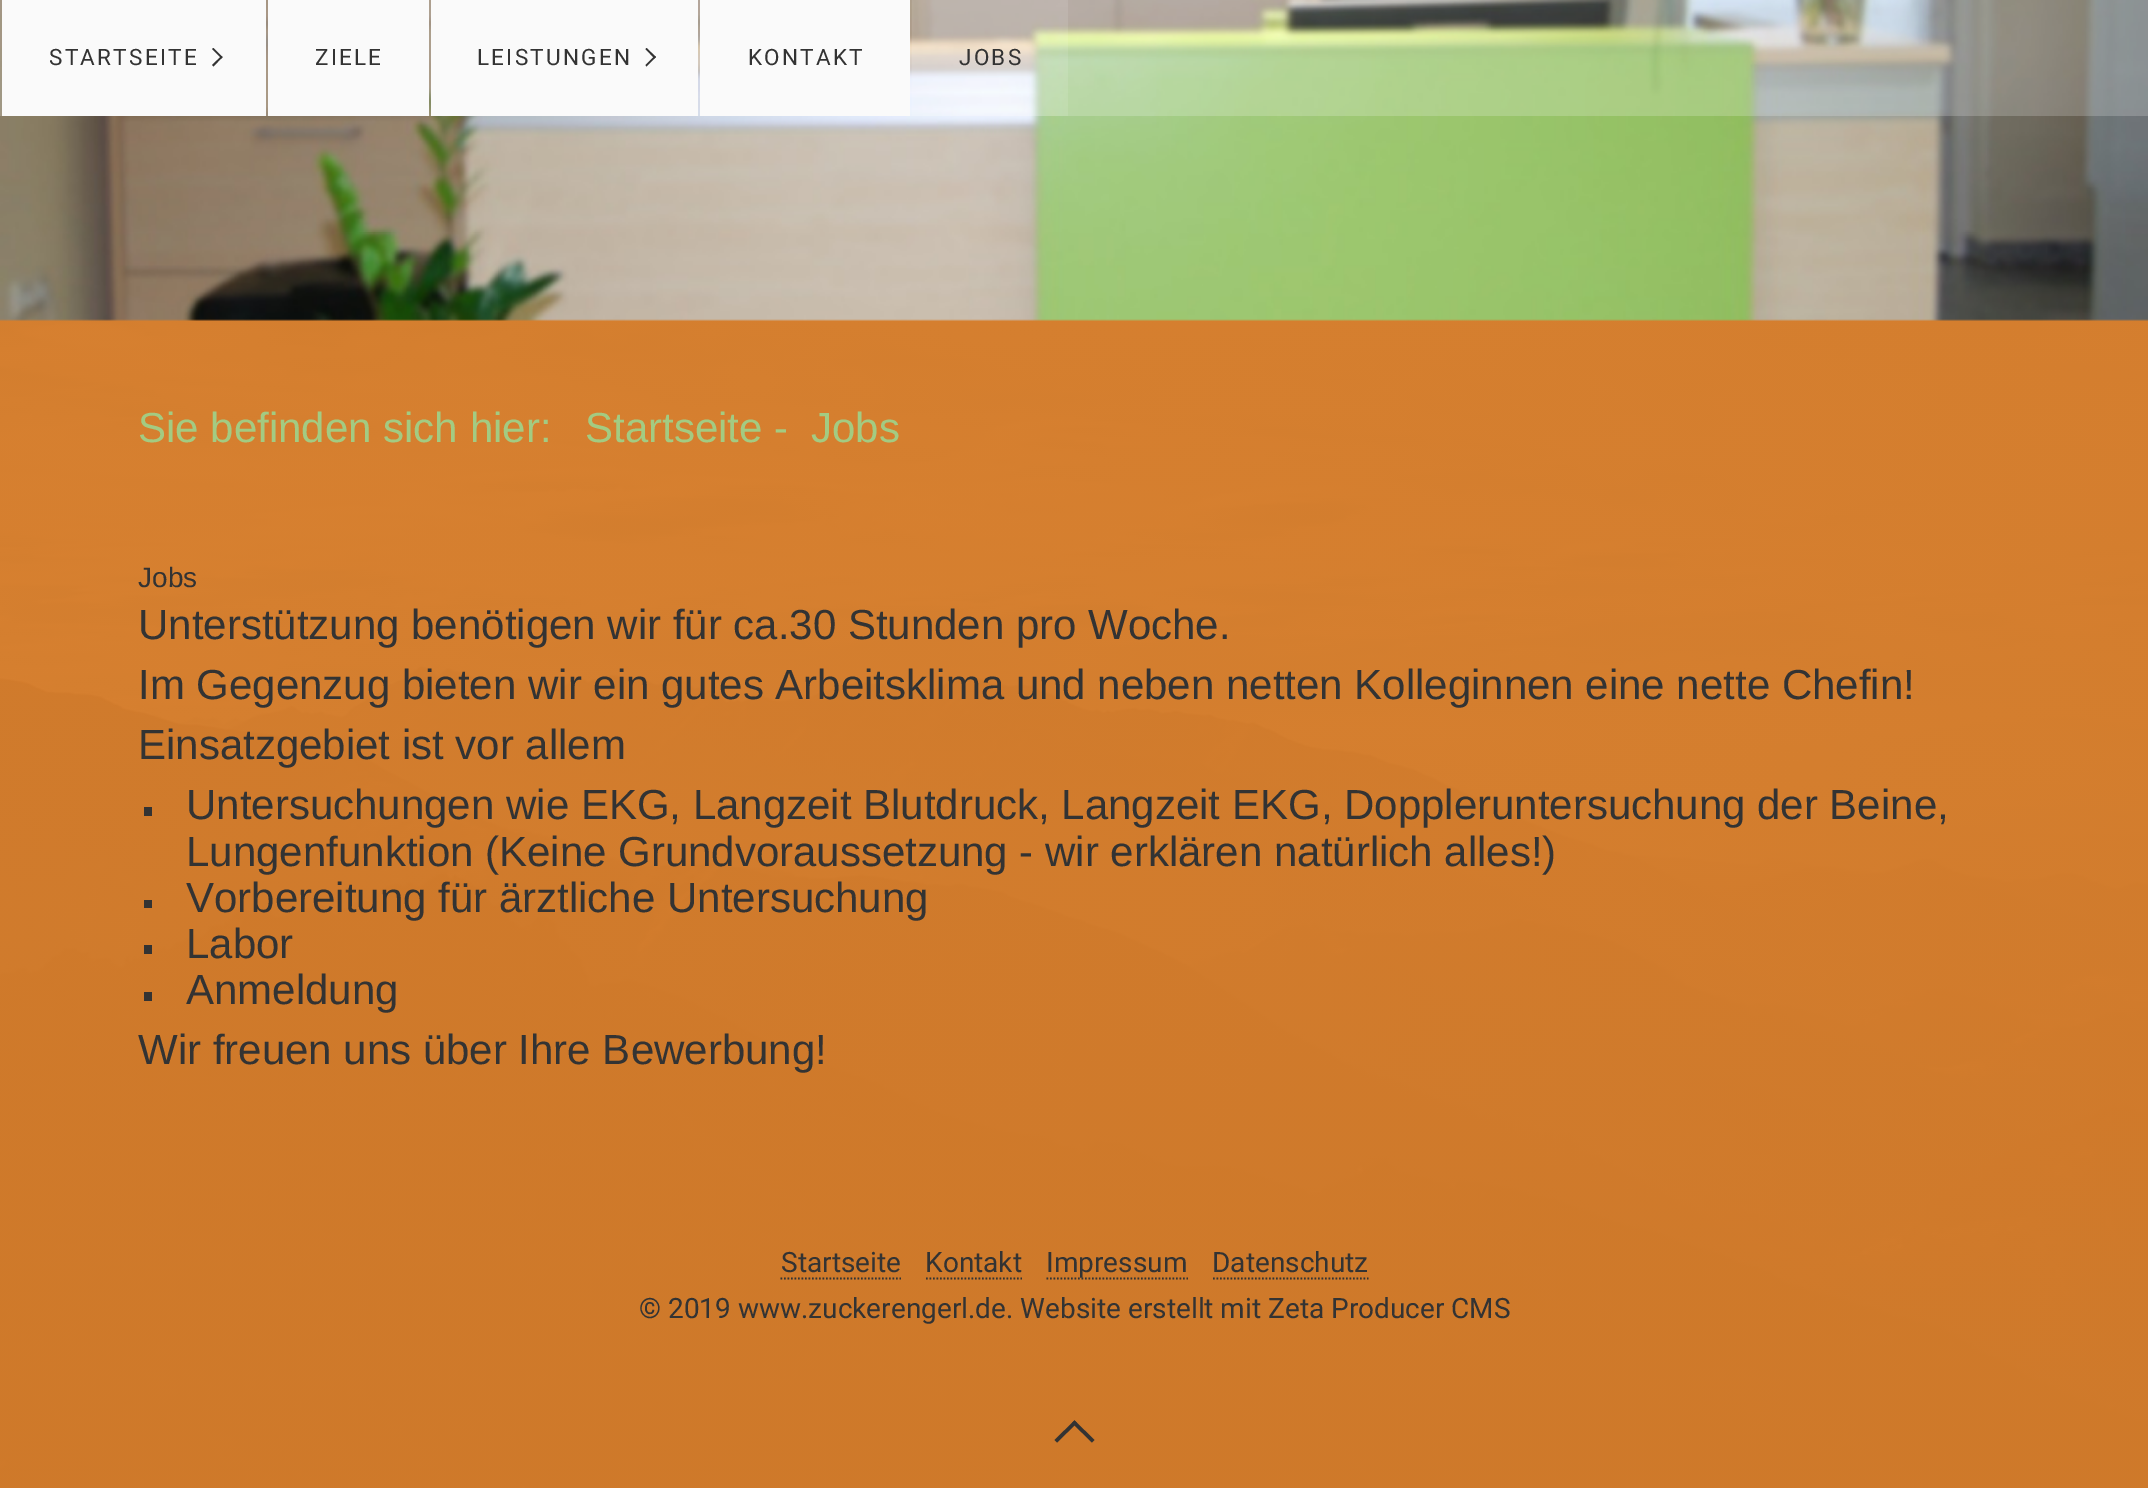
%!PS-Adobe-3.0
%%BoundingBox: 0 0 2148 1488
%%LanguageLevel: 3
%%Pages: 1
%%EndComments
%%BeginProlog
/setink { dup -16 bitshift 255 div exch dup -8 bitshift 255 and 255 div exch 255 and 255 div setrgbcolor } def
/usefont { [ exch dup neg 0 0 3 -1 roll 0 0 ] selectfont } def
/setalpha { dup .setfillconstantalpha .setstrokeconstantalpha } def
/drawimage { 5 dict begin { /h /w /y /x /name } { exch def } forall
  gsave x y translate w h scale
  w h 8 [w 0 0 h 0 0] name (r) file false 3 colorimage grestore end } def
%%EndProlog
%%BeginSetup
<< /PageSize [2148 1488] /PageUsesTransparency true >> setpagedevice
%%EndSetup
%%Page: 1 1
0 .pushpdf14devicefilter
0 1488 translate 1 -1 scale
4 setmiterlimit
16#FFFFFF setink
0 0 2148 1488 rectfill
(img2.raw) 0 319 2148 1169 drawimage
(img1.raw) 0 0 2148 321 drawimage
0.1 setalpha
[
    [0 0 2148 116 16#FFFFFF]
    [0 0 2148 116 16#FFFFFF]
] { aload pop setink rectfill } forall
1 setalpha
[
    [2 0 264 116 16#FAFAFA]
] { aload pop setink rectfill } forall
/Roboto-Regular 22.5 usefont
16#333333 setink
49 65 moveto 2.25 0 (STARTSEITE) ashow
213.5 48 moveto 222.5 57 lineto 221.5 58.5 lineto 212 49 lineto closepath fill
221.5 56 moveto 222.5 57 lineto 213.5 66.5 lineto 212 65 lineto closepath fill
16#FAFAFA setink
268 0 161 116 rectfill
16#333333 setink
315 65 moveto 2.25 0 (ZIELE) ashow
16#FAFAFA setink
431 0 267 116 rectfill
16#333333 setink
477 65 moveto 2.25 0 (LEISTUNGEN) ashow
646.5 48 moveto 656 57 lineto 654.5 58.5 lineto 645.5 49 lineto closepath fill
654.5 56 moveto 656 57 lineto 646.5 66.5 lineto 645.5 65 lineto closepath fill
16#FAFAFA setink
700 0 210 116 rectfill
16#333333 setink
748 65 moveto 2.25 0 (KONTAKT) ashow
0.1 setalpha
16#FFFFFF setink
912 0 156 116 rectfill
1 setalpha
16#333333 setink
959 65 moveto 2.25 0 (JOBS) ashow
/LiberationSans-Regular 42 usefont
16#A3CB82 setink
[
    [(Sie befinden sich hier:) 138 442]
    [(Startseite -) 585 442]
    [(Jobs) 811 442]
] { aload pop moveto show } forall
/LiberationSans-Regular 28 usefont
16#333333 setink
138 587 moveto (Jobs) show
/LiberationSans-Regular 42 usefont
[
    [(Unterstützung benötigen wir für ca.30 Stunden pro Woche.) 138 639]
    [(Im Gegenzug bieten wir ein gutes Arbeitsklima und neben netten Kolleginnen eine nette Chefin!) 138 699]
    [(Einsatzgebiet ist vor allem) 138 759]
] { aload pop moveto show } forall
144 807 8 9 rectfill
186 819 moveto (Untersuchungen wie EKG, Langzeit Blutdruck, Langzeit EKG, Doppleruntersuchung der Beine,) show
186 866 moveto (Lungenfunktion \(Keine Grundvoraussetzung - wir erklären natürlich alles!\)) show
144 900 8 8 rectfill
186 912 moveto (Vorbereitung für ärztliche Untersuchung) show
144 945 8 9 rectfill
186 958 moveto (Labor) show
144 992 8 9 rectfill
186 1004 moveto (Anmeldung) show
138 1064 moveto (Wir freuen uns über Ihre Bewerbung!) show
1.8 setlinewidth
[1.75 1.75] 0 setdash
780.5 1278.5 moveto 901 1278.5 lineto stroke
/Roboto-Regular 28 usefont
781 1272 moveto (Startseite) show
926 1278.5 moveto 1022 1278.5 lineto stroke
925 1272 moveto (Kontakt) show
1046.5 1278.5 moveto 1188 1278.5 lineto stroke
1046 1272 moveto (Impressum) show
1213 1278.5 moveto 1368.5 1278.5 lineto stroke
1212 1272 moveto (Datenschutz) show
639 1318 moveto (© 2019 www.zuckerengerl.de. Website erstellt mit Zeta Producer CMS) show
1054.5 1440 moveto 1074.5 1420.5 lineto 1077 1423 lineto 1057 1442.5 lineto closepath fill
1072 1423 moveto 1074.5 1420.5 lineto 1094.5 1440 lineto 1092 1442.5 lineto closepath fill
.poppdf14devicefilter showpage
%%EOF
